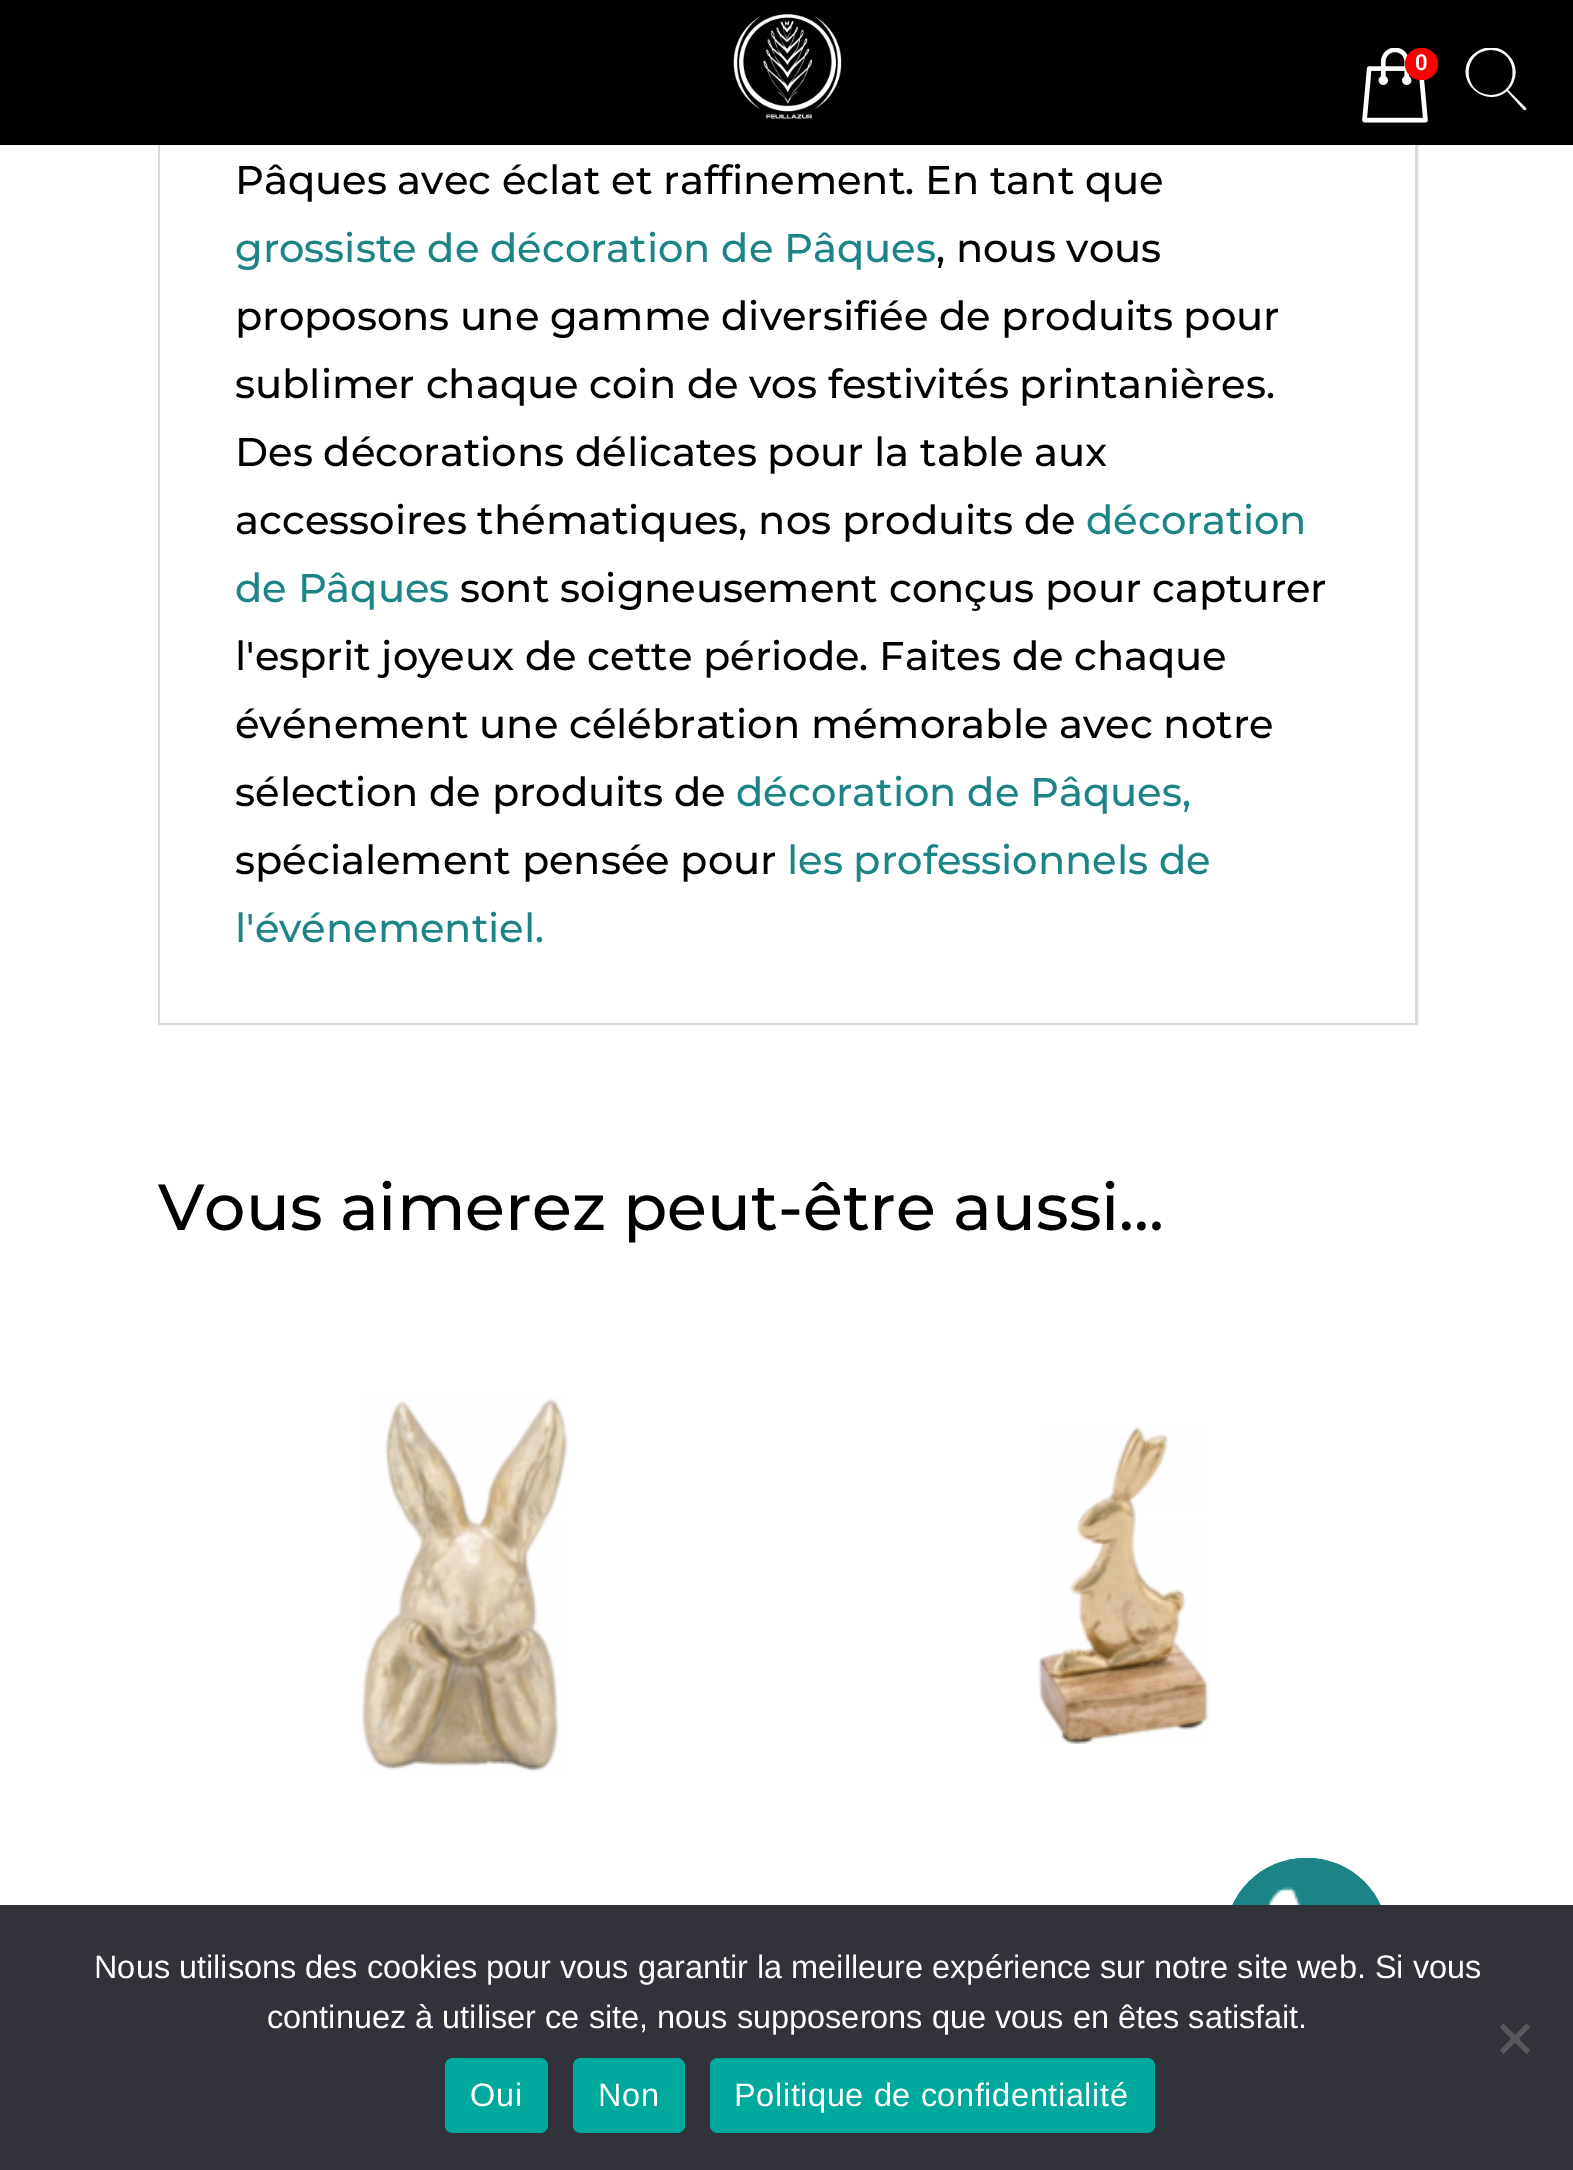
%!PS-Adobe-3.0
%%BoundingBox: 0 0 1573 2170
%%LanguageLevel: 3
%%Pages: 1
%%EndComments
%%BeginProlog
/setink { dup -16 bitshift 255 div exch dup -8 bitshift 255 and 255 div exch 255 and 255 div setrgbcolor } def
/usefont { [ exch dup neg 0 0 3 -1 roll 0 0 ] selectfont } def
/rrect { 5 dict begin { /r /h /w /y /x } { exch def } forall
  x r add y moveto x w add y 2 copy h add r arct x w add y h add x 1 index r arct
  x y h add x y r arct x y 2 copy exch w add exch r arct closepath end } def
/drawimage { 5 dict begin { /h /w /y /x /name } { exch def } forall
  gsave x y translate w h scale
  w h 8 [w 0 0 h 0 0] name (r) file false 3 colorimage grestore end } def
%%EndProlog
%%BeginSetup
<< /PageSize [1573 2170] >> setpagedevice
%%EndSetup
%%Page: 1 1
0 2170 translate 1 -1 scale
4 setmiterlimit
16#FFFFFF setink
0 0 1573 2170 rectfill
16#D9D9D9 setink
3 setlinewidth
159.5 -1.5 1257 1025 rectstroke
16#000000 setink
0 0 1573 145 rectfill
(img1.raw) 733 14 109 105 drawimage
(img2.raw) 1362 48 66 75 drawimage
16#FF0000 setink
1405 48 33 32 16 rrect fill
/Roboto-SemiBold 22 usefont
16#FFFFFF setink
1415 70 moveto (0) show
gsave
1465 48 63 62 rectclip
1526 108 moveto 1508 90 lineto 1518 80 1518 64 1508 55 curveto 1503 49 1494 46 1486 48 curveto 1480 49 1474 53 1470 58 curveto 1454 82 1486 109 1507 91 curveto 1524 110 lineto 1525 111 1527 109 1526 108 curveto closepath 1491 95 moveto 1461 95 1461 50 1491 50 curveto 1520 50 1520 95 1491 95 curveto closepath fill
grestore
160 145 1255 878 rectfill
/Montserrat-Medium 40 usefont
16#000000 setink
235 194 moveto (Pâques avec éclat et raffinement. En tant que) show
16#1C8485 setink
235 262 moveto (grossiste de décoration de Pâques) show
16#000000 setink
[
    [(, nous vous) 936 262]
    [(proposons une gamme diversifiée de produits pour) 235 330]
    [(sublimer chaque coin de vos festivités printanières.) 235 398]
    [(Des décorations délicates pour la table aux) 235 466]
    [(accessoires thématiques, nos produits de) 235 534]
] { aload pop moveto show } forall
16#1C8485 setink
1086 534 moveto (décoration) show
235 602 moveto (de Pâques) show
16#000000 setink
[
    [(sont soigneusement conçus pour capturer) 460 602]
    [(l'esprit joyeux de cette période. Faites de chaque) 235 670]
    [(événement une célébration mémorable avec notre) 235 738]
    [(sélection de produits de) 235 806]
] { aload pop moveto show } forall
16#1C8485 setink
736 806 moveto (décoration de Pâques,) show
16#000000 setink
235 874 moveto (spécialement pensée pour) show
16#1C8485 setink
787 874 moveto (les professionnels de) show
235 942 moveto (l'événementiel.) show
/Montserrat-Medium 65 usefont
16#000000 setink
158 1230 moveto (Vous aimerez peut-être aussi…) show
(img3.raw) 360 1398 208 374 drawimage
(img4.raw) 1038 1426 171 318 drawimage
16#1C8485 setink
1226.5 1859.5 160 159 79.5 rrect stroke
1225 1858 163 162 81 rrect fill
(img5.raw) 1267 1887 34 18 drawimage
16#32323A setink
0 1905 1573 265 rectfill
/LiberationSans-Regular 32.5 usefont
16#FFFFFF setink
94 1978 moveto (Nous utilisons des cookies pour vous garantir la meilleure expérience sur notre site web. Si vous) show
267 2028 moveto (continuez à utiliser ce site, nous supposerons que vous en êtes satisfait.) show
16#59595D setink
1526.5 2023.5 moveto 1530 2027.5 lineto 1503.5 2054 lineto 1500 2050 lineto closepath fill
1500 2027.5 moveto 1503.5 2023.5 lineto 1530 2050 lineto 1526.5 2054 lineto closepath fill
16#00A99D setink
445 2058 103 75 8 rrect fill
16#FFFFFF setink
470 2106 moveto 0.6 0 (Oui) ashow
16#00A99D setink
573 2058 112 75 8 rrect fill
16#FFFFFF setink
598 2106 moveto 0.6 0 (Non) ashow
16#00A99D setink
710 2058 445 75 8 rrect fill
16#FFFFFF setink
734 2106 moveto 0.6 0 (Politique de confidentialité) ashow
showpage
%%EOF
